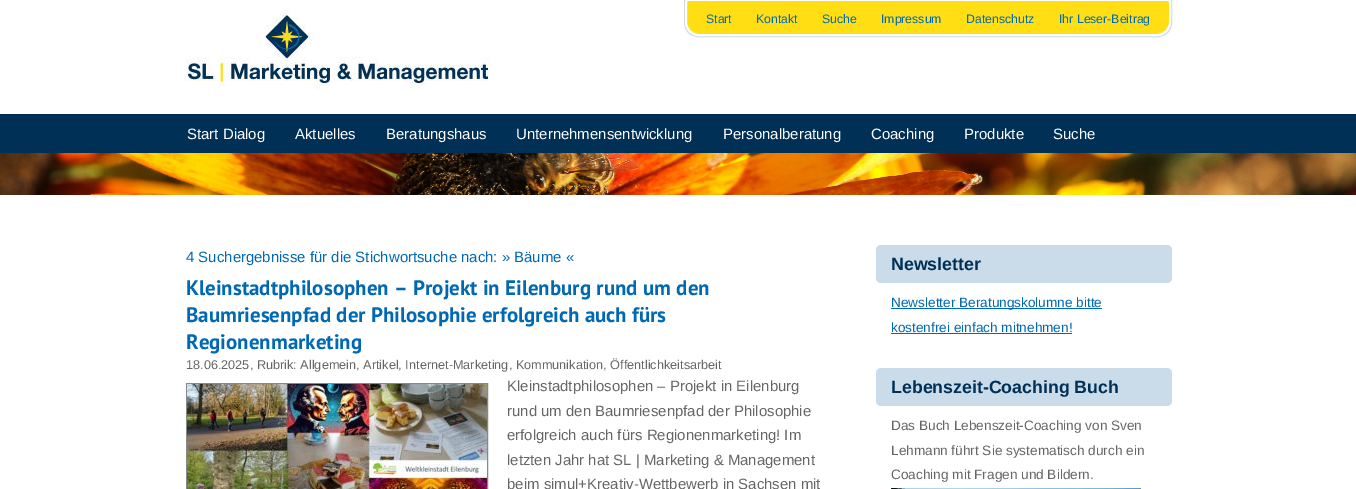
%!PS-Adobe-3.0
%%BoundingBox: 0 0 1356 489
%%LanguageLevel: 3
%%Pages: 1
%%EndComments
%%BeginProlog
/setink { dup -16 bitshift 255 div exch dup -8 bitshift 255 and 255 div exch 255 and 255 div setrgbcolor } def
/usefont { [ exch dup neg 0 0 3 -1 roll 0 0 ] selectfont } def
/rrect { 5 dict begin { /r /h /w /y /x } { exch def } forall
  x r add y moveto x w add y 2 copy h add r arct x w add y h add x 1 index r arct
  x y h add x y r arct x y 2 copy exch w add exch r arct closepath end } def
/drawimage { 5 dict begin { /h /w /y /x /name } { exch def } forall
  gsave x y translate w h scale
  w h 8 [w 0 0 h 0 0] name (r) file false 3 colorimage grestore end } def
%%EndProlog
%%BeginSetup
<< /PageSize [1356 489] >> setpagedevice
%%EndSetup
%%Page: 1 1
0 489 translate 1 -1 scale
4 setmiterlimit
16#FFFFFF setink
0 0 1356 489 rectfill
(img1.raw) 186 9 304 80 drawimage
16#CADCEA setink
684.5 -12.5 487 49 13.5 rrect stroke
gsave
1 1 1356 112 rectclip
16#FFDE13 setink
686 -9 484 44 13 rrect gsave fill grestore
16#FFFFFF setink
2 setlinewidth
stroke
grestore
/LiberationSans-Regular 12.25 usefont
16#0069B4 setink
[
    [(Start) 706 23]
    [(Kontakt) 756 23]
    [(Suche) 822 23]
    [(Impressum) 881 23]
    [(Datenschutz) 966 23]
    [(Ihr Leser-Beitrag) 1059 23]
] { aload pop moveto show } forall
16#003056 setink
0 114 1356 39 rectfill
/LiberationSans-Regular 14.95 usefont
16#FFFFFF setink
[
    [(Start Dialog) 187 139]
    [(Aktuelles) 295 139]
    [(Beratungshaus) 386 139]
    [(Unternehmensentwicklung) 516 139]
    [(Personalberatung) 723 139]
    [(Coaching) 871 139]
    [(Produkte) 964 139]
    [(Suche) 1053 139]
] { aload pop moveto show } forall
(img2.raw) 0 153 1356 42 drawimage
16#0069B4 setink
186 262 moveto (4 Suchergebnisse für die Stichwortsuche nach: » Bäume «) show
/PTSans-Bold 20.95 usefont
[
    [(Kleinstadtphilosophen – Projekt in Eilenburg rund um den) 186 295]
    [(Baumriesenpfad der Philosophie erfolgreich auch fürs) 186 322]
    [(Regionenmarketing) 186 349]
] { aload pop moveto show } forall
/LiberationSans-Regular 12.7 usefont
16#666666 setink
186 369 moveto (18.06.2025, Rubrik: Allgemein, Artikel, Internet-Marketing, Kommunikation, Öffentlichkeitsarbeit) show
16#888888 setink
186.5 383.5 301 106 rectstroke
(img3.raw) 187 384 300 105 drawimage
/LiberationSans-Regular 14.95 usefont
16#666666 setink
[
    [(Kleinstadtphilosophen – Projekt in Eilenburg) 507 391]
    [(rund um den Baumriesenpfad der Philosophie) 507 416]
    [(erfolgreich auch fürs Regionenmarketing! Im) 507 440]
    [(letzten Jahr hat SL | Marketing & Management) 507 465]
    [(beim simul+Kreativ-Wettbewerb in Sachsen mit) 507 489]
] { aload pop moveto show } forall
16#CADCEA setink
876 245 296 38 5 rrect fill
/LiberationSans-Bold 17.75 usefont
16#003056 setink
891 270 moveto (Newsletter) show
16#0069B4 setink
891 308 211 1 rectfill
/LiberationSans-Regular 13.6 usefont
891 307 moveto (Newsletter Beratungskolumne bitte) show
891 332 moveto (kostenfrei einfach mitnehmen!) show
891 333 181 1 rectfill
16#CADCEA setink
876 368 296 38 5 rrect fill
/LiberationSans-Bold 17.75 usefont
16#003056 setink
891 393 moveto (Lebenszeit-Coaching Buch) show
/LiberationSans-Regular 13.6 usefont
16#666666 setink
[
    [(Das Buch Lebenszeit-Coaching von Sven) 891 430]
    [(Lehmann führt Sie systematisch durch ein) 891 455]
    [(Coaching mit Fragen und Bildern.) 891 479]
] { aload pop moveto show } forall
(img4.raw) 891 488 250 1 drawimage
showpage
%%EOF
